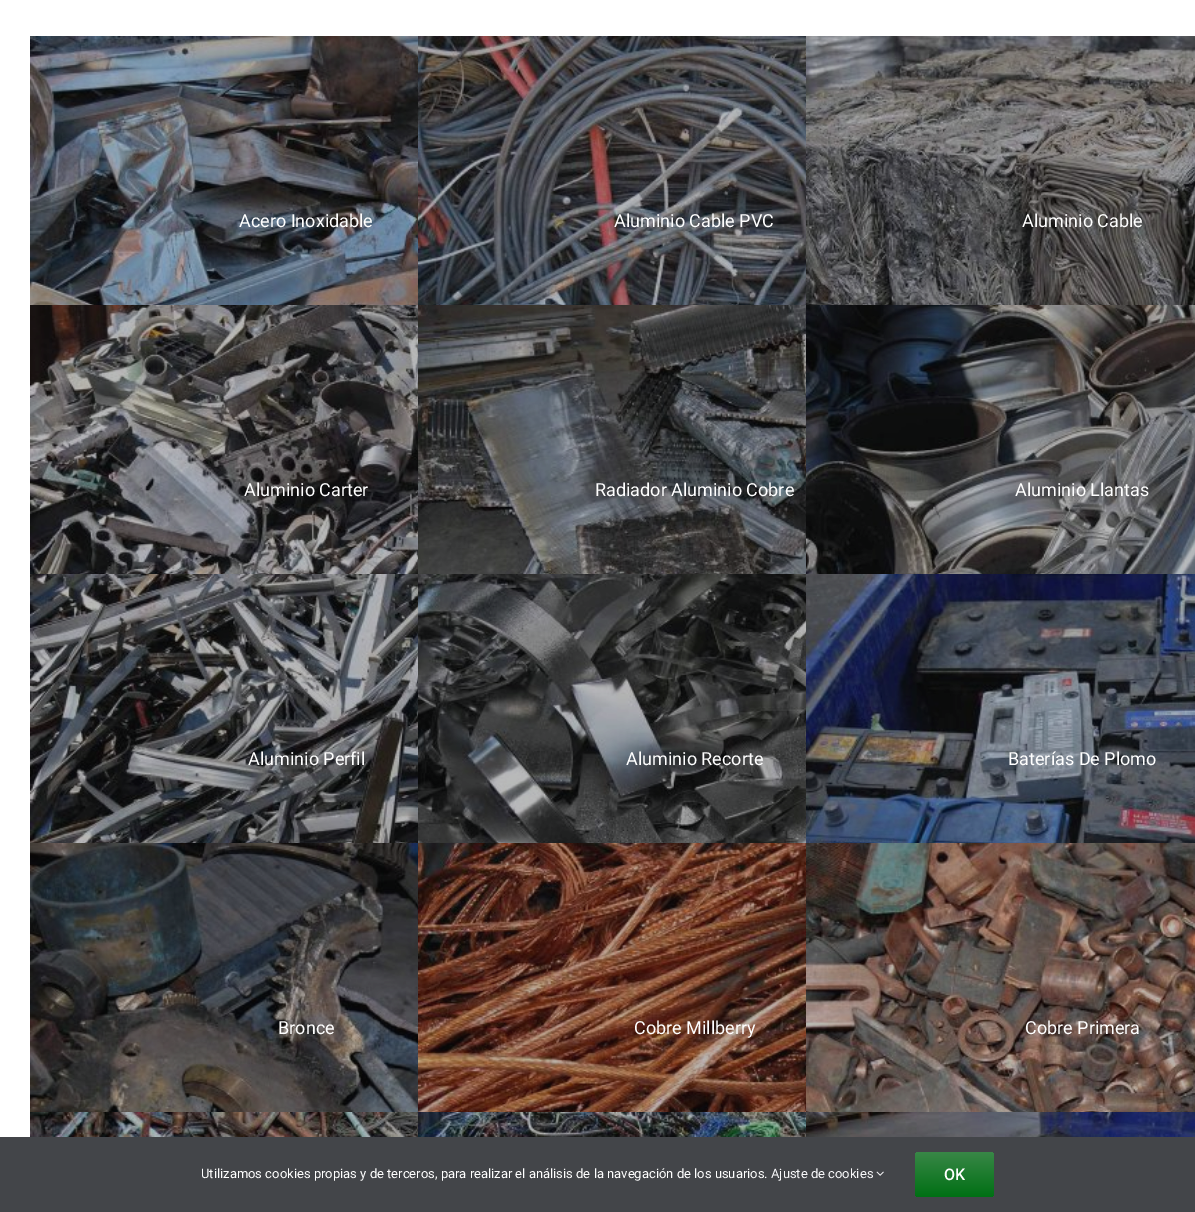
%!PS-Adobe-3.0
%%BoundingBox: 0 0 1195 1212
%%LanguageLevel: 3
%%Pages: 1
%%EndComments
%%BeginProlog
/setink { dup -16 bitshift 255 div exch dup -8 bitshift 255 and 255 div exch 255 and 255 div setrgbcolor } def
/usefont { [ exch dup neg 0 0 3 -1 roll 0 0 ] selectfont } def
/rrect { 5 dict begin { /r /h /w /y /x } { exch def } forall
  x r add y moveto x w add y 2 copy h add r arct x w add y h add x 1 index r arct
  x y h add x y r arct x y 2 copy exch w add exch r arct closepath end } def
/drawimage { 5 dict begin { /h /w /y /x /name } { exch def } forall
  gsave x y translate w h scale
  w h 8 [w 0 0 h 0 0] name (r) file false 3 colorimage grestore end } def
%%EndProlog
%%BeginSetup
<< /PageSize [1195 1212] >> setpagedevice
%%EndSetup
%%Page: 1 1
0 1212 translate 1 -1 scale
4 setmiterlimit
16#FFFFFF setink
0 0 1195 1212 rectfill
(img1.raw) 30 36 553 369 drawimage
/Roboto-Regular 18 usefont
239 227 moveto (Acero Inoxidable) show
(img2.raw) 418 36 553 369 drawimage
614 227 moveto (Aluminio Cable PVC) show
(img3.raw) 806 36 389 369 drawimage
1022 227 moveto (Aluminio Cable) show
(img4.raw) 30 305 553 369 drawimage
244 496 moveto (Aluminio Carter) show
(img5.raw) 418 305 553 369 drawimage
595 496 moveto (Radiador Aluminio Cobre) show
(img6.raw) 806 305 389 369 drawimage
1015 496 moveto (Aluminio Llantas) show
(img7.raw) 30 574 553 369 drawimage
248 765 moveto (Aluminio Perfil) show
(img8.raw) 418 574 553 369 drawimage
626 765 moveto (Aluminio Recorte) show
(img9.raw) 806 574 389 369 drawimage
1008 765 moveto (Baterías De Plomo) show
(img10.raw) 30 843 553 294 drawimage
278 1034 moveto (Bronce) show
(img11.raw) 418 843 553 294 drawimage
634 1034 moveto (Cobre Millberry) show
(img12.raw) 806 843 389 294 drawimage
1025 1034 moveto (Cobre Primera) show
(img13.raw) 30 1112 553 25 drawimage
(img14.raw) 418 1112 553 25 drawimage
(img15.raw) 806 1112 389 25 drawimage
16#434549 setink
0 1137 1195 75 rectfill
/Roboto-Regular 13 usefont
16#FFFFFF setink
201 1178 moveto (Utilizamos cookies propias y de terceros, para realizar el análisis de la navegación de los usuarios.) show
16#F9F9FB setink
771 1178 moveto (Ajuste de cookies) show
(img16.raw) 876 1171 8 5 drawimage
gsave 915 1152 79 45 4 rrect clip newpath
<< /ShadingType 2 /ColorSpace /DeviceRGB /Coords [955 1152 955 1197] /Extend [true true] /Function << /FunctionType 2 /Domain [0 1] /C0 [0.224 0.529 0.278] /C1 [0 0.439 0.078] /N 1 >> >> shfill grestore
/Roboto-Medium 16 usefont
16#FFFFFF setink
944 1180 moveto (OK) show
showpage
%%EOF
